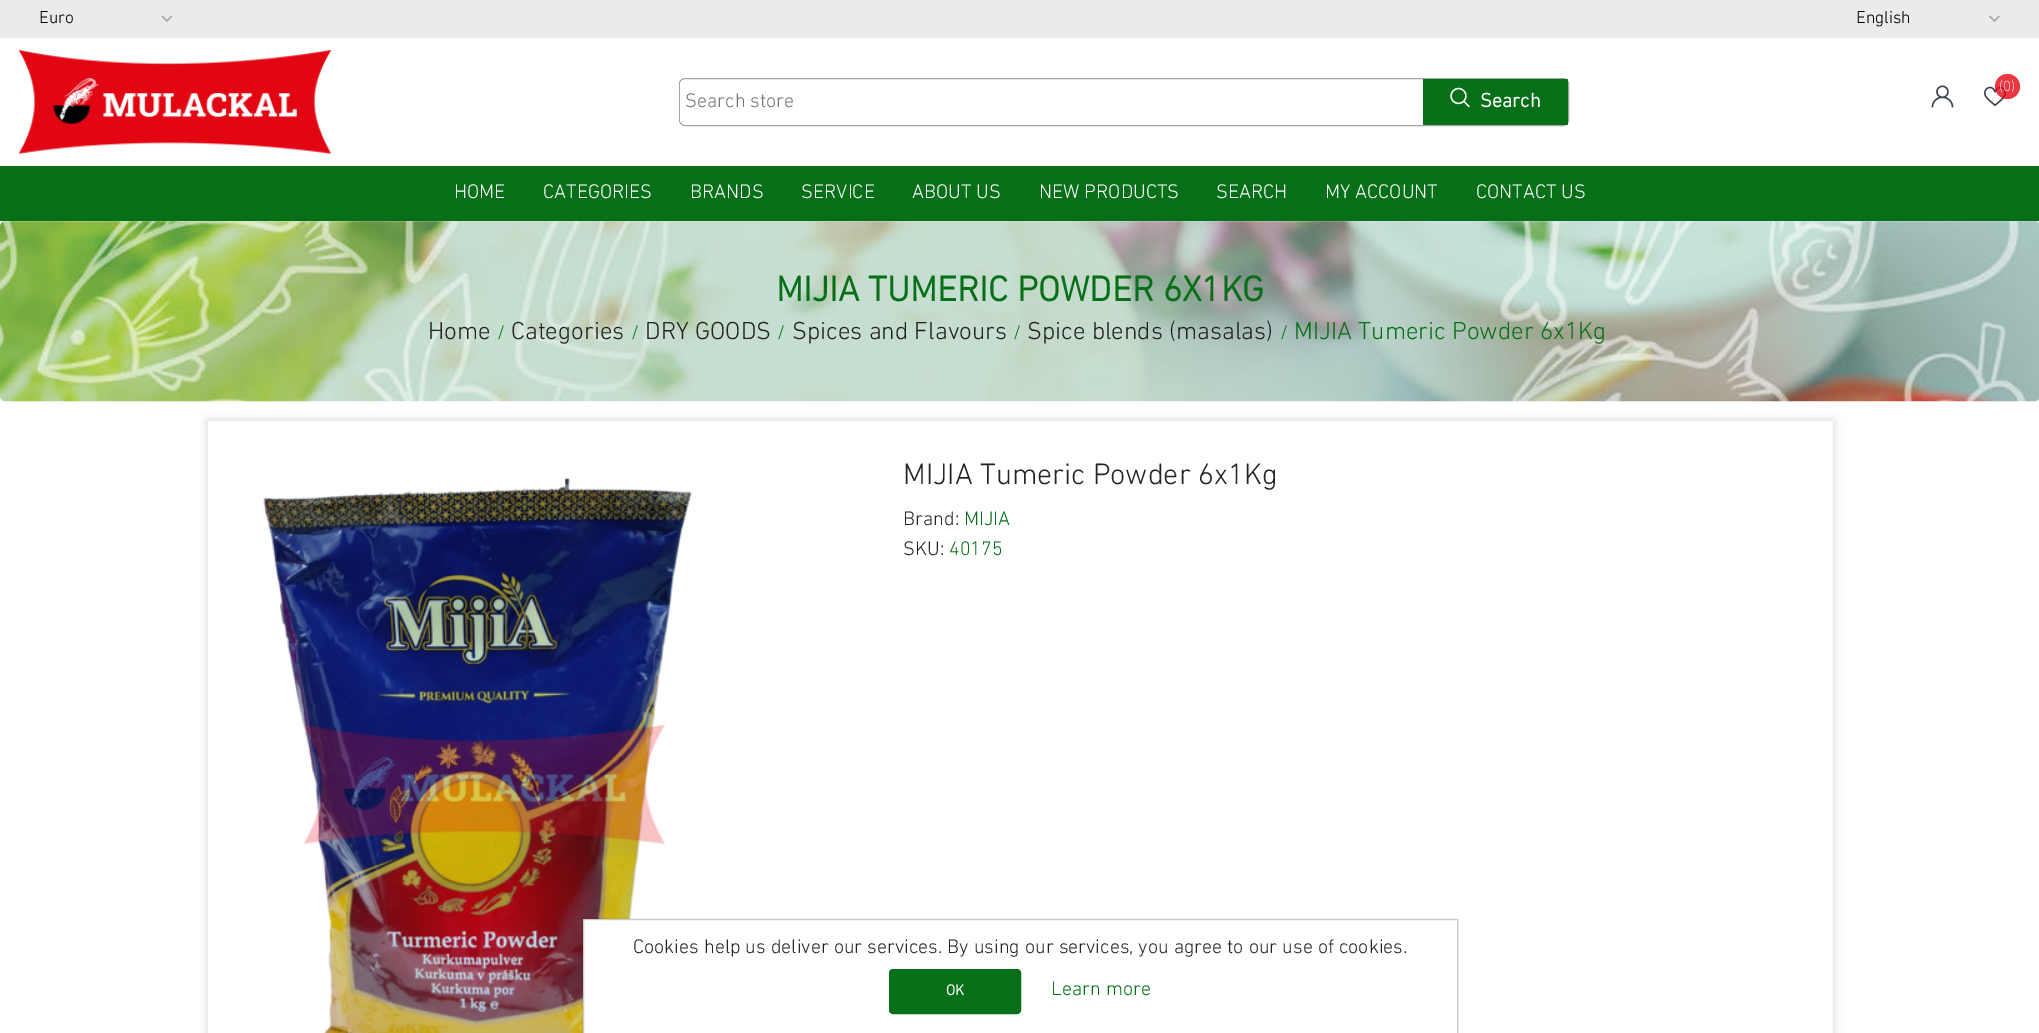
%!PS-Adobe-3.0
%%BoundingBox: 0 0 2039 1033
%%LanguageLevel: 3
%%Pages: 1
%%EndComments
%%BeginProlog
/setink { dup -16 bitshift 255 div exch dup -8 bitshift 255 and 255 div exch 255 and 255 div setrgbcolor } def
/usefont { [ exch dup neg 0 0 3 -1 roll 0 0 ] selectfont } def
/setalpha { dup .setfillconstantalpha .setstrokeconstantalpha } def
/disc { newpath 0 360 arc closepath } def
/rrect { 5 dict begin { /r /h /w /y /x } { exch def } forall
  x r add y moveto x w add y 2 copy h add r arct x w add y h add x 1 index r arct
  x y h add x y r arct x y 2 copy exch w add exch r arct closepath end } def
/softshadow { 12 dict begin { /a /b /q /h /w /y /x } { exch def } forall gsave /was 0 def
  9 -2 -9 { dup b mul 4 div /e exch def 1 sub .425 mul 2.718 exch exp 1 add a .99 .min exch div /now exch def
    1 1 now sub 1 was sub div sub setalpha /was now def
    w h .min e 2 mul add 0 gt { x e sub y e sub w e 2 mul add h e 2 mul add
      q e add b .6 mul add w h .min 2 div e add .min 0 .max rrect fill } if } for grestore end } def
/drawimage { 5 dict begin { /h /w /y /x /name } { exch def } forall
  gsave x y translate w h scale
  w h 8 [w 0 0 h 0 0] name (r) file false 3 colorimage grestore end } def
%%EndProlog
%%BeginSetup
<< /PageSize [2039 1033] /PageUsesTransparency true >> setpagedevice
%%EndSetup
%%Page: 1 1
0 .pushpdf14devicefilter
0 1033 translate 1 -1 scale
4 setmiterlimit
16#FFFFFF setink
0 0 2039 1033 rectfill
16#EBEBEB setink
0 0 2039 38 rectfill
(img1.raw) 161 15 12 7 drawimage
/DINNext-Light 17.5 usefont
16#000000 setink
39 23 moveto (Euro) show
(img2.raw) 1989 15 11 7 drawimage
1856 23 moveto (English) show
(img3.raw) 18 50 314 104 drawimage
(img4.raw) 1931 85 23 23 drawimage
(img5.raw) 1984 86 22 21 drawimage
0.8 setalpha
16#E30613 setink
2007.5 86.5 12.5 disc fill
/DINNext-Light 15 usefont
1 setalpha
16#FAD7D9 setink
1999 91 moveto (\(0\)) show
16#A3A5A9 setink
679.5 78.5 889 47 5.5 rrect stroke
16#FFFFFF setink
685 80 moveto 1418 80 lineto 1418 124 lineto 685 124 lineto 682 124 680 122 680 119 curveto 680 85 lineto 680 82 682 80 685 80 curveto closepath fill
/DINNext-Light 20 usefont
16#757575 setink
685 107 moveto (Search store) show
16#076F18 setink
1423 79 145 46 rectfill
(img6.raw) 1450 87 20 21 drawimage
/DINNext-Bold 20 usefont
16#FFFFFF setink
1480 107 moveto (Search) show
16#076F18 setink
0 166 2039 55 rectfill
/DINNext-Light 20 usefont
16#FFFFFF setink
[
    [(HOME) 454 198]
    [(CATEGORIES) 543 198]
    [(BRANDS) 690 198]
    [(SERVICE) 801 198]
    [(ABOUT US) 912 198]
    [(NEW PRODUCTS) 1039 198]
    [(SEARCH) 1216 198]
    [(MY ACCOUNT) 1325 198]
    [(CONTACT US) 1476 198]
] { aload pop moveto show } forall
16#E9ECEF setink
0 221 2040 180 5 rrect fill
(img7.raw) 0 221 2039 181 drawimage
/DINNext-Bold 36 usefont
16#076F18 setink
776 301 moveto (MIJIA TUMERIC POWDER 6X1KG) show
/DINNext-Light 25 usefont
16#212121 setink
428 339 moveto (Home) show
/DINNext-Light 20 usefont
16#076F18 setink
497 339 moveto (/) show
/DINNext-Light 25 usefont
16#212121 setink
511 339 moveto (Categories) show
/DINNext-Light 20 usefont
16#076F18 setink
631 339 moveto (/) show
/DINNext-Light 25 usefont
16#212121 setink
645 339 moveto (DRY GOODS) show
/DINNext-Light 20 usefont
16#076F18 setink
777 339 moveto (/) show
/DINNext-Light 25 usefont
16#212121 setink
792 339 moveto (Spices and Flavours) show
/DINNext-Light 20 usefont
16#076F18 setink
1013 339 moveto (/) show
/DINNext-Light 25 usefont
16#212121 setink
1027 339 moveto (Spice blends \(masalas\)) show
/DINNext-Light 20 usefont
16#076F18 setink
1280 339 moveto (/) show
/DINNext-Light 25 usefont
1294 339 moveto (MIJIA Tumeric Powder 6x1Kg) show
gsave
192 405 moveto 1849 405 lineto 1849 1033 lineto 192 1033 lineto closepath 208 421 moveto 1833 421 lineto 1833 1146 lineto 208 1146 lineto closepath eoclip newpath
16#D1D1D1 setink
208 421 1625 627 0 5 1 softshadow
grestore
(img8.raw) 263 477 429 556 drawimage
/DINNext-Light 30 usefont
16#212529 setink
903 484 moveto (MIJIA Tumeric Powder 6x1Kg) show
/DINNext-Light 20 usefont
903 525 moveto (Brand:) show
16#076F18 setink
964 525 moveto (MIJIA) show
16#212529 setink
903 555 moveto (SKU:) show
16#076F18 setink
949 555 moveto (40175) show
16#000000 setink
583 919 875 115 0 1 0.15 softshadow
16#FFFFFF setink
583.5 919.5 moveto 1457.5 919.5 lineto 1457.5 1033.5 lineto 583.5 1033.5 lineto closepath gsave fill grestore
16#CCCCCC setink
stroke
16#212529 setink
633 953 moveto (Cookies help us deliver our services. By using our services, you agree to our use of cookies.) show
16#076F18 setink
889.5 969.5 131 44 3.5 rrect gsave fill grestore
stroke
/DINNext-Bold 15 usefont
16#FFFFFF setink
946 995 moveto (OK) show
/DINNext-Light 20 usefont
16#076F18 setink
1051 995 moveto (Learn more) show
.poppdf14devicefilter showpage
%%EOF
